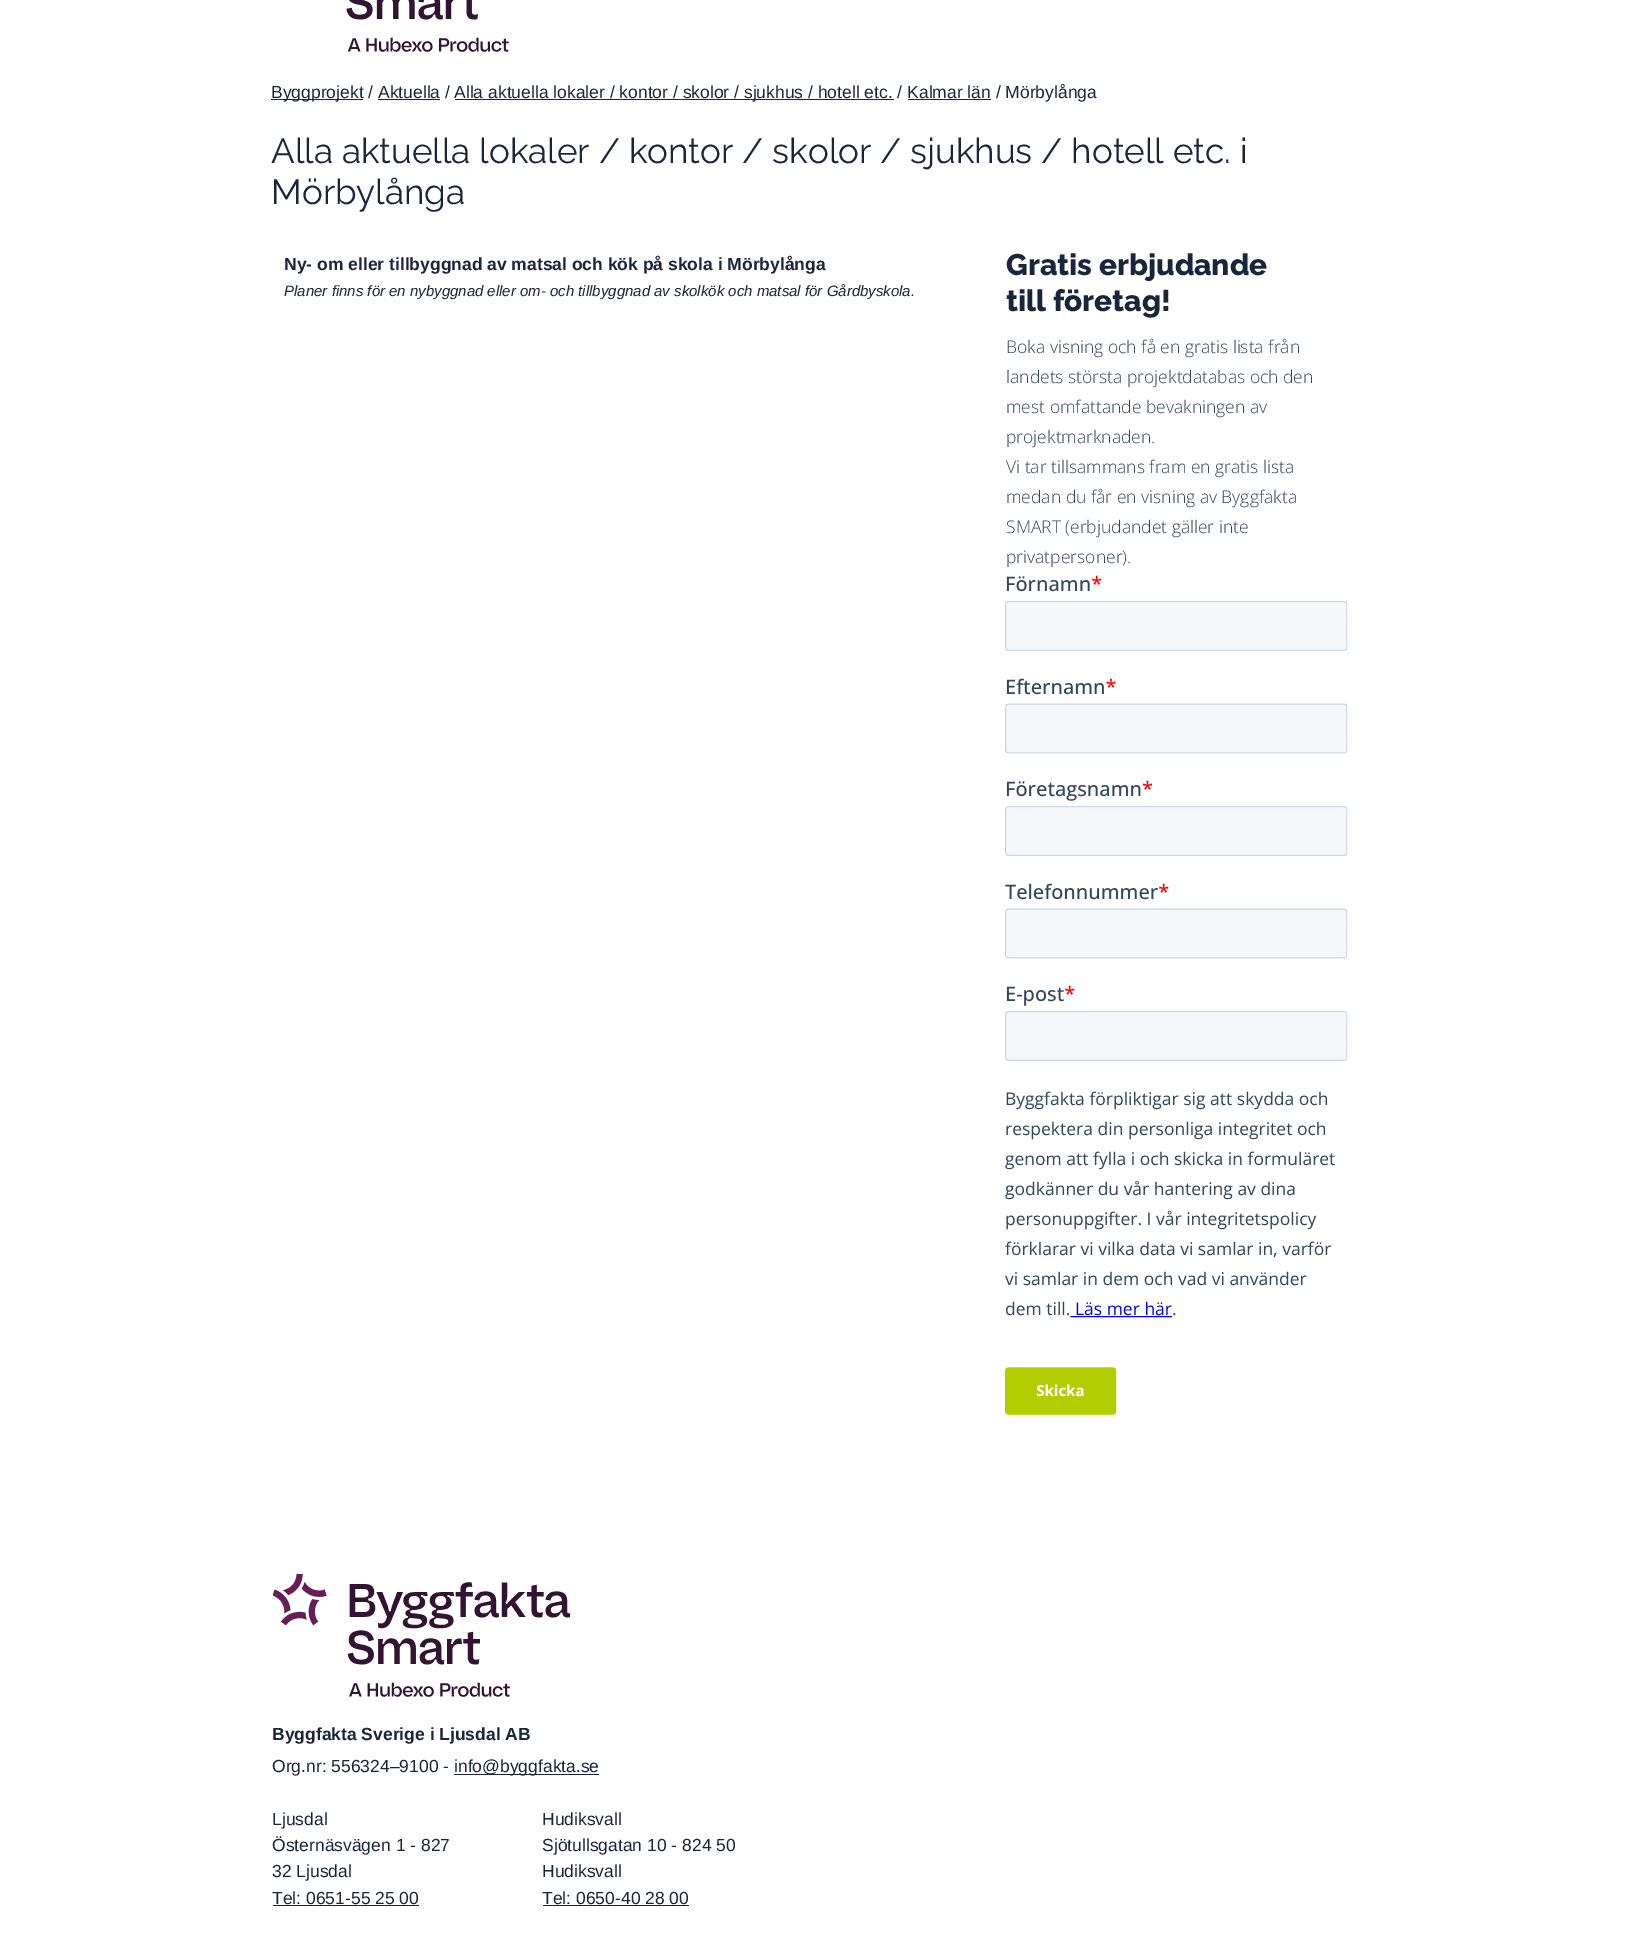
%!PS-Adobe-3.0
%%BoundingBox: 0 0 1643 1959
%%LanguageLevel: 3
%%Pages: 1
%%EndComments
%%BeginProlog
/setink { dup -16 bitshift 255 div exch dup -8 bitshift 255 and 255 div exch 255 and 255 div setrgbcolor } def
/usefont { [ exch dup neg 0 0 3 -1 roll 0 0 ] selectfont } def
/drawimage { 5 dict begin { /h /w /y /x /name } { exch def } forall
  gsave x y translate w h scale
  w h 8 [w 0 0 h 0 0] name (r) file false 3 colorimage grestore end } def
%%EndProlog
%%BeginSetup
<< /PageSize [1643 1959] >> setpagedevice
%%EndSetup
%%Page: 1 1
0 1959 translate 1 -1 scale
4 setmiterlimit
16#FFFFFF setink
0 0 1643 1959 rectfill
(img1.raw) 346 0 163 52 drawimage
16#19253B setink
271 99 92 1 rectfill
/LiberationSans-Regular 17.5 usefont
271 98 moveto (Byggprojekt / Aktuella /) show
455 99 439 1 rectfill
454 98 moveto (Alla aktuella lokaler / kontor / skolor / sjukhus / hotell etc. / Kalmar län / Mörbylånga) show
378 99 62 1 rectfill
908 99 83 1 rectfill
/Raleway-Regular 35 usefont
271 163 moveto (Alla aktuella lokaler / kontor / skolor / sjukhus / hotell etc. i) show
271 204 moveto (Mörbylånga) show
/LiberationSans-Bold 17.5 usefont
284 270 moveto (Ny- om eller tillbyggnad av matsal och kök på skola i Mörbylånga) show
/LiberationSans-Italic 15 usefont
284 296 moveto (Planer finns för en nybyggnad eller om- och tillbyggnad av skolkök och matsal för Gårdbyskola.) show
/Raleway-ExtraBold 29.75 usefont
1006 275 moveto (Gratis erbjudande) show
1006 311 moveto (till företag!) show
/OpenSans-Light 17.5 usefont
16#33475B setink
[
    [(Boka visning och få en gratis lista från) 1006 353]
    [(landets största projektdatabas och den) 1006 383]
    [(mest omfattande bevakningen av) 1006 413]
    [(projektmarknaden.) 1006 443]
    [(Vi tar tillsammans fram en gratis lista) 1006 473]
    [(medan du får en visning av Byggfakta) 1006 503]
    [(SMART \(erbjudandet gäller inte) 1006 533]
    [(privatpersoner\).) 1006 563]
] { aload pop moveto show } forall
(img2.raw) 1005 575 343 840 drawimage
(img3.raw) 273 1574 297 123 drawimage
/LiberationSans-Bold 17.5 usefont
16#19253B setink
272 1740 moveto (Byggfakta Sverige i Ljusdal AB) show
/LiberationSans-Regular 17.5 usefont
272 1772 moveto (Org.nr: 556324–9100 -) show
454 1774 145 1 rectfill
[
    [(info@byggfakta.se) 454 1772]
    [(Ljusdal) 272 1825]
    [(Östernäsvägen 1 - 827) 272 1851]
    [(32 Ljusdal) 272 1877]
    [(Tel: 0651-55 25 00) 272 1904]
] { aload pop moveto show } forall
273 1905 146 1 rectfill
[
    [(Hudiksvall) 542 1825]
    [(Sjötullsgatan 10 - 824 50) 542 1851]
    [(Hudiksvall) 542 1877]
    [(Tel: 0650-40 28 00) 542 1904]
] { aload pop moveto show } forall
543 1905 146 1 rectfill
showpage
%%EOF
